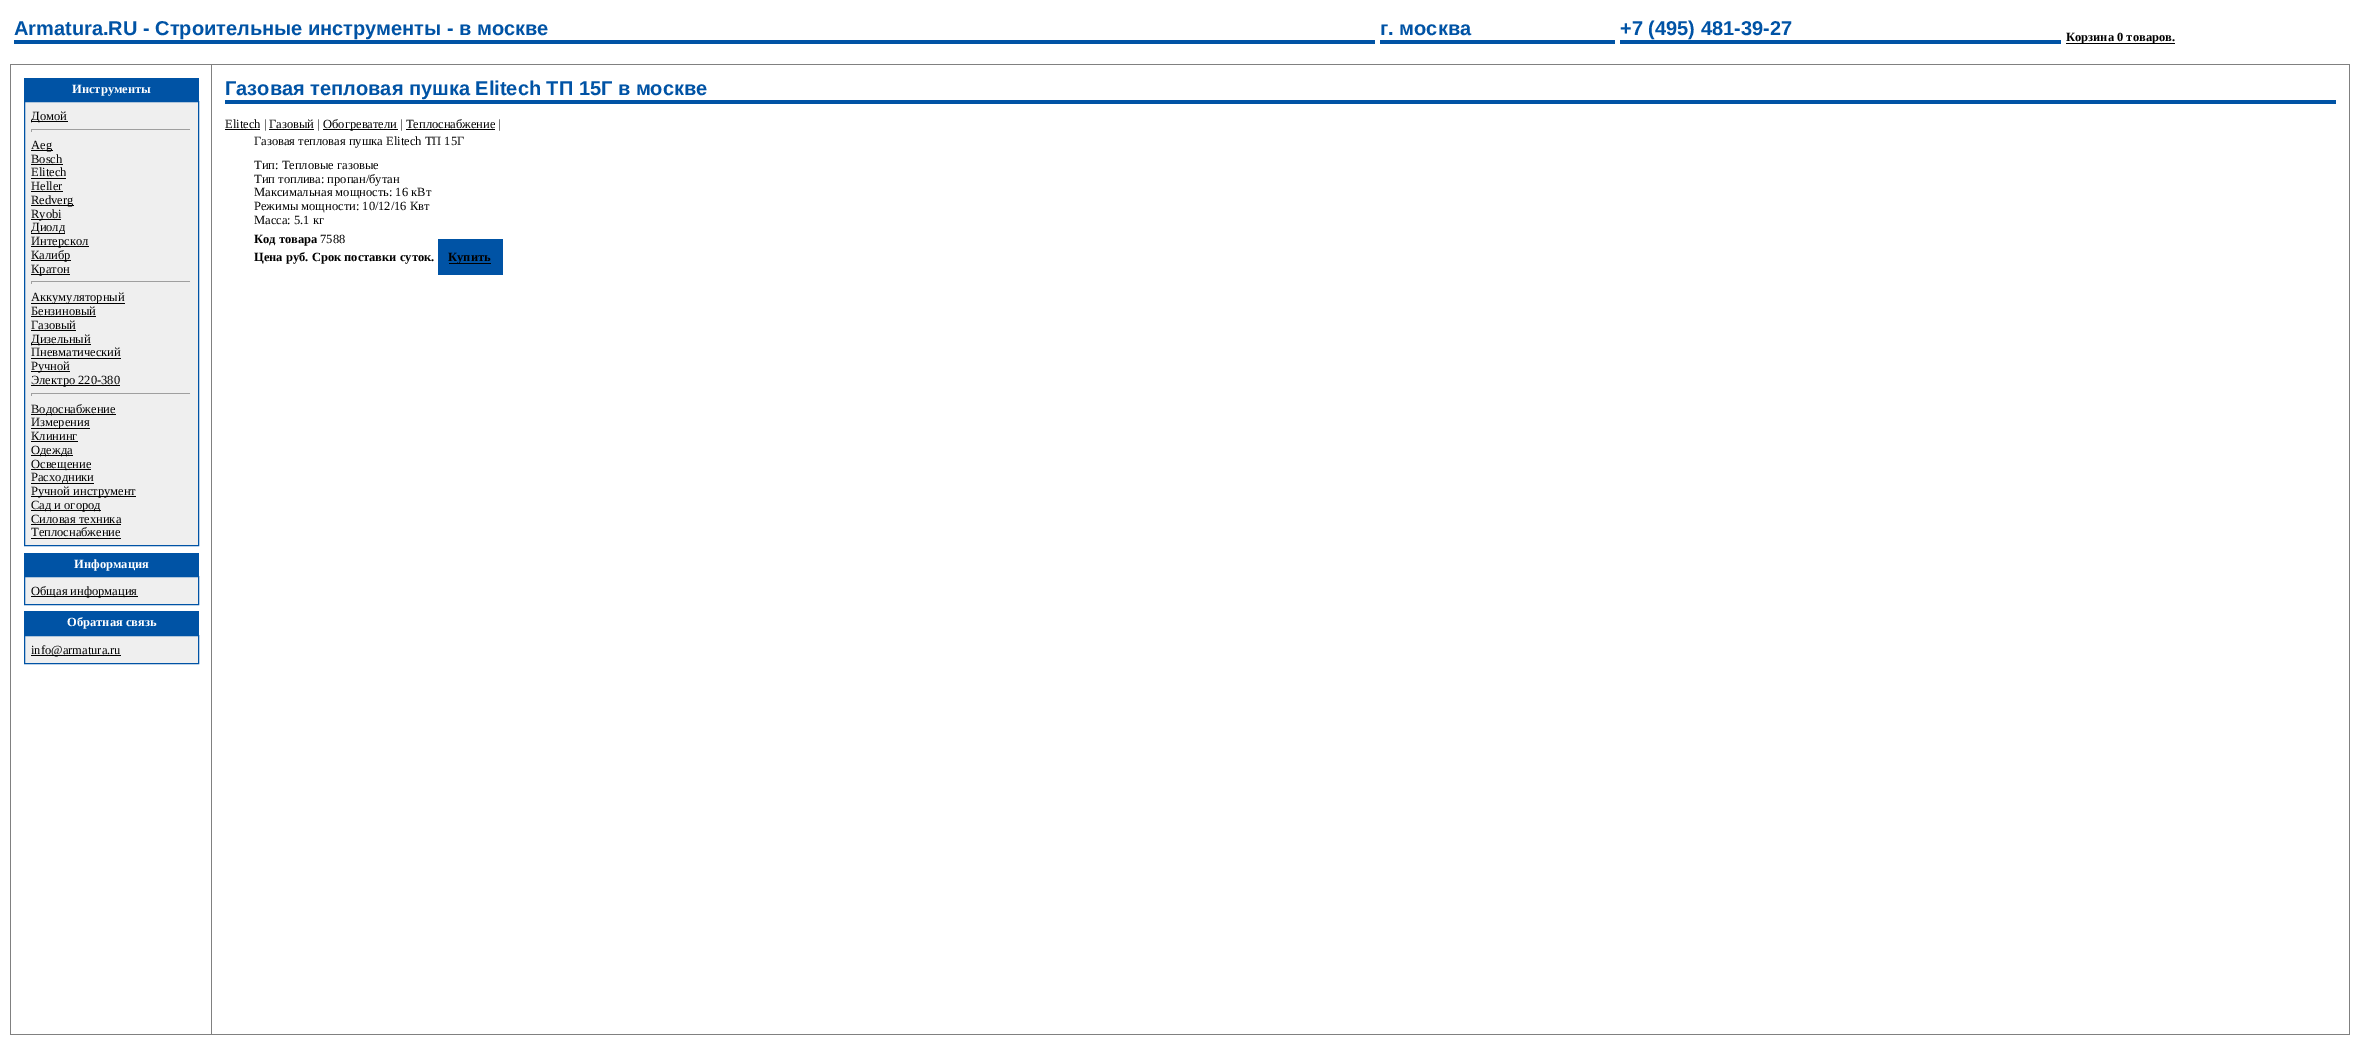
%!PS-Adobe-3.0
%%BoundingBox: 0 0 2359 1045
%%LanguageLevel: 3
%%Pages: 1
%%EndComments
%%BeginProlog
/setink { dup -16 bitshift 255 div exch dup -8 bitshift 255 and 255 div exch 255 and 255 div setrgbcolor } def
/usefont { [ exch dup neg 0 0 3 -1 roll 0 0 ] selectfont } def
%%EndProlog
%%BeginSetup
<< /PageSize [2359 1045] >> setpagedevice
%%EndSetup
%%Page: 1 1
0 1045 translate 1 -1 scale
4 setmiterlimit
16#FFFFFF setink
0 0 2359 1045 rectfill
16#0053A5 setink
14 40 1361 4 rectfill
/LiberationSans-Bold 20 usefont
14 35 moveto (Armatura.RU - Строительные инструменты - в москве) show
1380 40 235 4 rectfill
1380 35 moveto (г. москва) show
1620 40 441 4 rectfill
1620 35 moveto (+7 \(495\) 481-39-27) show
16#000000 setink
2066 43 109 1 rectfill
/LiberationSerif-Bold 12.5 usefont
2066 41 moveto (Корзина 0 товаров.) show
[
    [10 64 2340 1 16#808080]
    [2349 64 1 971 16#808080]
    [10 1034 2340 1 16#808080]
    [10 64 1 971 16#808080]
    [24 78 175 23 16#0053A5]
] { aload pop setink rectfill } forall
16#FFFFFF setink
72 93 moveto (Инструменты) show
16#EFEFEF setink
24.5 101.5 moveto 198.5 101.5 lineto 198.5 545.5 lineto 24.5 545.5 lineto closepath gsave fill grestore
16#0053A5 setink
stroke
16#000000 setink
31 121 37 1 rectfill
/LiberationSerif-Regular 12.5 usefont
31 120 moveto (Домой) show
[
    [31 129 160 1 16#9F9F9F]
    [190 129 1 3 16#EEEEEE]
    [31 129 1 3 16#9F9F9F]
    [31 150 22 1 16#000000]
] { aload pop setink rectfill } forall
31 149 moveto (Aeg) show
31 163 moveto (Bosch) show
31 164 32 1 rectfill
31 176 moveto (Elitech) show
31 178 35 1 rectfill
31 190 moveto (Heller) show
31 191 32 1 rectfill
31 205 43 1 rectfill
31 204 moveto (Redverg) show
31 219 30 1 rectfill
31 218 moveto (Ryobi) show
31 233 34 1 rectfill
31 231 moveto (Диолд) show
31 246 58 1 rectfill
31 245 moveto (Интерскол) show
31 260 40 1 rectfill
31 259 moveto (Калибр) show
31 274 39 1 rectfill
31 273 moveto (Кратон) show
[
    [31 281 160 1 16#9F9F9F]
    [190 281 1 3 16#EEEEEE]
    [31 281 1 3 16#9F9F9F]
    [31 303 94 1 16#000000]
] { aload pop setink rectfill } forall
31 301 moveto (Аккумуляторный) show
31 315 moveto (Бензиновый) show
31 316 65 1 rectfill
31 329 moveto (Газовый) show
31 330 45 1 rectfill
31 344 60 1 rectfill
31 343 moveto (Дизельный) show
31 356 moveto (Пневматический) show
31 358 90 1 rectfill
31 371 39 1 rectfill
31 370 moveto (Ручной) show
31 385 89 1 rectfill
31 384 moveto (Электро 220-380) show
[
    [31 393 160 1 16#9F9F9F]
    [190 393 1 3 16#EEEEEE]
    [31 393 1 3 16#9F9F9F]
    [31 414 85 1 16#000000]
] { aload pop setink rectfill } forall
31 413 moveto (Водоснабжение) show
31 428 59 1 rectfill
31 426 moveto (Измерения) show
31 440 moveto (Клининг) show
31 441 47 1 rectfill
31 455 42 1 rectfill
31 454 moveto (Одежда) show
31 469 60 1 rectfill
31 468 moveto (Освещение) show
31 483 63 1 rectfill
31 481 moveto (Расходники) show
31 496 105 1 rectfill
31 495 moveto (Ручной инструмент) show
31 510 70 1 rectfill
31 509 moveto (Сад и огород) show
31 523 moveto (Силовая техника) show
31 524 90 1 rectfill
31 536 moveto (Теплоснабжение) show
31 538 90 1 rectfill
16#0053A5 setink
24 553 175 23 rectfill
/LiberationSerif-Bold 12.5 usefont
16#FFFFFF setink
74 568 moveto (Информация) show
16#EFEFEF setink
24.5 576.5 moveto 198.5 576.5 lineto 198.5 604.5 lineto 24.5 604.5 lineto closepath gsave fill grestore
16#0053A5 setink
stroke
16#000000 setink
31 596 107 1 rectfill
/LiberationSerif-Regular 12.5 usefont
31 595 moveto (Общая информация) show
16#0053A5 setink
24 611 175 24 rectfill
/LiberationSerif-Bold 12.5 usefont
16#FFFFFF setink
67 626 moveto (Обратная связь) show
16#EFEFEF setink
24.5 635.5 moveto 198.5 635.5 lineto 198.5 663.5 lineto 24.5 663.5 lineto closepath gsave fill grestore
16#0053A5 setink
stroke
16#000000 setink
31 655 90 1 rectfill
/LiberationSerif-Regular 12.5 usefont
31 654 moveto (info@armatura.ru) show
16#808080 setink
211 64 1 971 rectfill
16#0053A5 setink
225 100 2111 4 rectfill
/LiberationSans-Bold 20 usefont
225 95 moveto (Газовая тепловая пушка Elitech ТП 15Г в москве) show
16#000000 setink
225 129 35 1 rectfill
/LiberationSerif-Regular 12.5 usefont
225 128 moveto (Elitech | Газовый |) show
323 129 75 1 rectfill
323 128 moveto (Обогреватели | Теплоснабжение |) show
269 129 45 1 rectfill
406 129 89 1 rectfill
[
    [(Газовая тепловая пушка Elitech ТП 15Г) 254 145]
    [(Тип: Тепловые газовые) 254 169]
    [(Тип топлива: пропан/бутан) 254 183]
    [(Максимальная мощность: 16 кВт) 254 196]
    [(Режимы мощности: 10/12/16 Квт) 254 210]
    [(Масса: 5.1 кг) 254 224]
] { aload pop moveto show } forall
/LiberationSerif-Bold 12.5 usefont
254 243 moveto (Код товара) show
/LiberationSerif-Regular 12.5 usefont
320 243 moveto (7588) show
/LiberationSerif-Bold 12.5 usefont
254 261 moveto (Цена руб. Срок поставки суток.) show
16#0053A5 setink
438 239 65 36 rectfill
16#000000 setink
449 263 42 1 rectfill
448 261 moveto (Купить) show
showpage
%%EOF
